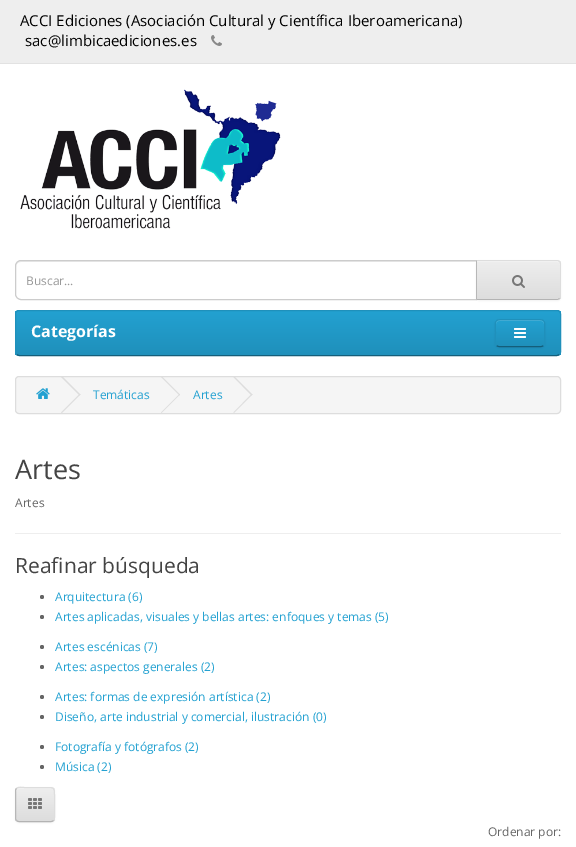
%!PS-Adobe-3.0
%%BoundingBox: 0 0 576 847
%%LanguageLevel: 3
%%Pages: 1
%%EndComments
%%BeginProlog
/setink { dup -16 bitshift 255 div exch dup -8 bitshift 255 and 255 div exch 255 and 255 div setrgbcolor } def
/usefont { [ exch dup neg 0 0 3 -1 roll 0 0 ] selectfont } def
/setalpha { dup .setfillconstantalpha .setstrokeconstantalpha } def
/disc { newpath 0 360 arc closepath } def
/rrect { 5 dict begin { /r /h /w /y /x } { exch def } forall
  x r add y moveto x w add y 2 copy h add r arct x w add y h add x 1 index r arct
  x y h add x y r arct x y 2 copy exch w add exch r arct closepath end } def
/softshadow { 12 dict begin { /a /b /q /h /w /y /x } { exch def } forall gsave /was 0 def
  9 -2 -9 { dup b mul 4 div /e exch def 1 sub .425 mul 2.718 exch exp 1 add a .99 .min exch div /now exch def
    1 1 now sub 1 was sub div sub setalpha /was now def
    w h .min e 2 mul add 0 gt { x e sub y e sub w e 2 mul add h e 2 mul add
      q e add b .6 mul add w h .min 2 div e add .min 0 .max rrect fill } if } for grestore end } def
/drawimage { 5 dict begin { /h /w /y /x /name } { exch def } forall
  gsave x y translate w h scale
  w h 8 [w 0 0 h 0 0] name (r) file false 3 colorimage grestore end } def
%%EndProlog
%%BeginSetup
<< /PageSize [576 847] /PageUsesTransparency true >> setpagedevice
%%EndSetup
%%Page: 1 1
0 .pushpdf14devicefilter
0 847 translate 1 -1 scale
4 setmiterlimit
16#FFFFFF setink
0 0 576 847 rectfill
16#EEEEEE setink
0 0 576 63 rectfill
16#E2E2E2 setink
0 63 576 1 rectfill
/OpenSans-Regular 15 usefont
16#000000 setink
20 26 moveto (ACCI Ediciones \(Asociación Cultural y Científica Iberoamericana\)) show
25 46 moveto (sac@limbicaediciones.es) show
(img1.raw) 211 35 11 11 drawimage
(img2.raw) 20 89 261 140 drawimage
16#ECECEC setink
21 262 moveto 476 262 lineto 476 261 lineto 21 261 lineto 18 261 16 264 16 267 curveto 16 264 18 262 21 262 curveto closepath fill
16#CCCCCC setink
21 260.5 moveto 476.5 260.5 lineto 476.5 299.5 lineto 21 299.5 lineto 18 299.5 15.5 297 15.5 294 curveto 15.5 266 lineto 15.5 263 18 260.5 21 260.5 curveto closepath stroke
/OpenSans-Regular 12 usefont
16#999999 setink
26 285 moveto (Buscar...) show
16#000000 setink
476 261 85 40 4 1 0.05 softshadow
16#E7E7E7 setink
476 260 moveto 557 260 lineto 559 260 561 262 561 264 curveto 561 296 lineto 561 298 559 300 557 300 curveto 476 300 lineto closepath fill
gsave
476 260 moveto 557 260 lineto 559 260 561 262 561 264 curveto 561 296 lineto 561 298 559 300 557 300 curveto 476 300 lineto closepath clip newpath
gsave 477 261 moveto 561 261 lineto 561 299 lineto 477 299 lineto closepath clip newpath
<< /ShadingType 2 /ColorSpace /DeviceRGB /Coords [519 261 519 299] /Extend [true true] /Function << /FunctionType 2 /Domain [0 1] /C0 [0.933 0.933 0.933] /C1 [0.867 0.867 0.867] /N 1 >> >> shfill grestore
grestore
16#F1F1F1 setink
477 262 moveto 557 262 lineto 559 262 560 263 560 265 curveto 560 264 lineto 560 262 559 261 557 261 curveto 477 261 lineto closepath fill
16#DDDDDD setink
476 260 moveto 477 261 lineto 558 261 lineto 559 262 lineto 560 261 lineto 557 260 lineto closepath fill
561 296 moveto 561 264 lineto 561 263 560.5 262 560 261 curveto 559 262 lineto 560 262 560 263 560 264 curveto 560 296 lineto 560 297 560 298 559 298 curveto 560 299 lineto 560.5 298 561 297 561 296 curveto closepath fill
16#B3B3B3 setink
557 300 moveto 560 299 lineto 559 298 lineto 558 299 lineto 477 299 lineto 476 300 lineto closepath fill
16#B7B7B7 setink
476 260 moveto 476 300 lineto 477 299 lineto 477 261 lineto closepath fill
(img3.raw) 512 275 13 13 drawimage
16#229AC8 setink
15 310 546 46 4 rrect fill
gsave
15 310 546 46 4 rrect clip newpath
gsave 15 311 moveto 561 311 lineto 561 355 lineto 15 355 lineto closepath clip newpath
<< /ShadingType 2 /ColorSpace /DeviceRGB /Coords [288 311 288 355] /Extend [true true] /Function << /FunctionType 2 /Domain [0 1] /C0 [0.137 0.631 0.82] /C1 [0.122 0.565 0.733] /N 1 >> >> shfill grestore
grestore
16#145E7A setink
559.5 354.5 moveto 557 355.5 lineto 19 355.5 lineto 16.5 354.5 lineto stroke
16#1F90BB setink
16.5 354.5 moveto 16 354 15.5 353 15.5 352 curveto 15.5 314 lineto 15.5 313 16 312 16.5 311.5 curveto 17 311 18 310.5 19 310.5 curveto 557 310.5 lineto 558 310.5 559 311 559.5 311.5 curveto 560 312 560.5 313 560.5 314 curveto 560.5 352 lineto 560.5 353 560 354 559.5 354.5 curveto stroke
/OpenSans-Bold 16 usefont
16#FFFFFF setink
31 337 moveto (Categorías) show
16#000000 setink
495 320 50 28 4 1 0.05 softshadow
16#229AC8 setink
495 319 50 28 4 rrect fill
gsave
495 319 50 28 4 rrect clip newpath
gsave 495 320 moveto 545 320 lineto 545 346 lineto 495 346 lineto closepath clip newpath
<< /ShadingType 2 /ColorSpace /DeviceRGB /Coords [520 320 520 346] /Extend [true true] /Function << /FunctionType 2 /Domain [0 1] /C0 [0.137 0.631 0.82] /C1 [0.122 0.565 0.733] /N 1 >> >> shfill grestore
grestore
16#4FB4DA setink
499 321 moveto 541 321 lineto 543 321 544 322 544 324 curveto 544 318 538 320 534 320 curveto 506 320 lineto 502 320 496 318 496 324 curveto 496 322 497 321 499 321 curveto closepath fill
16#145E7A setink
543.5 345.5 moveto 543 346 542 346.5 541 346.5 curveto 499 346.5 lineto 498 346.5 497 346 496.5 345.5 curveto stroke
16#1F90BB setink
496.5 345.5 moveto 494.5 343 495.5 335.5 495.5 333 curveto 495.5 320 493 319.5 506 319.5 curveto 534 319.5 lineto 547 319.5 544.5 320 544.5 333 curveto 544.5 335.5 545.5 343 543.5 345.5 curveto stroke
(img4.raw) 514 328 12 10 drawimage
16#F5F5F5 setink
15.5 376.5 545 37 3.5 rrect gsave fill grestore
16#DDDDDD setink
stroke
(img5.raw) 36 388 14 11 drawimage
61 377 moveto 62 376 lineto 80.5 394.5 lineto 79.5 395.5 lineto closepath fill
61 412.5 moveto 79.5 394 lineto 80.5 394.5 lineto 62 413 lineto closepath fill
/OpenSans-Regular 12 usefont
16#23A1D1 setink
93 399 moveto (Temáticas) show
16#DDDDDD setink
161 377 moveto 161.5 376 lineto 180 394.5 lineto 179.5 395.5 lineto closepath fill
161 412.5 moveto 179.5 394 lineto 180 394.5 lineto 161.5 413 lineto closepath fill
16#23A1D1 setink
193 399 moveto (Artes) show
16#DDDDDD setink
233.5 377 moveto 234 376 lineto 252.5 394.5 lineto 251.5 395.5 lineto closepath fill
233.5 412.5 moveto 251.5 394 lineto 252.5 394.5 lineto 234 413 lineto closepath fill
/OpenSans-Regular 27 usefont
16#444444 setink
15 479 moveto (Artes) show
/OpenSans-Regular 12 usefont
16#666666 setink
15 507 moveto (Artes) show
16#EEEEEE setink
15 533 546 1 rectfill
/OpenSans-Regular 21 usefont
16#444444 setink
15 573 moveto (Reafinar búsqueda) show
16#666666 setink
42 597 2 disc fill
/OpenSans-Regular 12 usefont
16#23A1D1 setink
55 601 moveto (Arquitectura \(6\)) show
16#666666 setink
42 617 2 disc fill
16#23A1D1 setink
55 621 moveto (Artes aplicadas, visuales y bellas artes: enfoques y temas \(5\)) show
16#666666 setink
42 647 2 disc fill
16#23A1D1 setink
55 651 moveto (Artes escénicas \(7\)) show
16#666666 setink
42 667 2 disc fill
16#23A1D1 setink
55 671 moveto (Artes: aspectos generales \(2\)) show
16#666666 setink
42 697 2 disc fill
16#23A1D1 setink
55 701 moveto (Artes: formas de expresión artística \(2\)) show
16#666666 setink
42 717 2 disc fill
16#23A1D1 setink
55 721 moveto (Diseño, arte industrial y comercial, ilustración \(0\)) show
16#666666 setink
42 747 2 disc fill
16#23A1D1 setink
55 751 moveto (Fotografía y fotógrafos \(2\)) show
16#666666 setink
42 767 2 disc fill
16#23A1D1 setink
55 771 moveto (Música \(2\)) show
16#000000 setink
15 788 40 35 4 1 0.05 softshadow
16#E7E7E7 setink
15 787 40 35 4 rrect fill
gsave
15 787 40 35 4 rrect clip newpath
gsave 15 788 moveto 55 788 lineto 55 821 lineto 15 821 lineto closepath clip newpath
<< /ShadingType 2 /ColorSpace /DeviceRGB /Coords [35 788 35 821] /Extend [true true] /Function << /FunctionType 2 /Domain [0 1] /C0 [0.933 0.933 0.933] /C1 [0.867 0.867 0.867] /N 1 >> >> shfill grestore
grestore
16#F1F1F1 setink
19 789 moveto 52 789 lineto 54 791 lineto 54 789.5 52.5 788 51 788 curveto 19 788 lineto 17.5 788 16 789.5 16 791 curveto 16 791.5 lineto 16.5 790 17.5 789 19 789 curveto closepath 16 819 moveto 16 814 lineto closepath eofill
16#DDDDDD setink
16.5 788.5 moveto 18.5 786.5 22.5 787.5 24.5 787.5 curveto 45.5 787.5 lineto 54 787.5 54.5 787 54.5 795.5 curveto 54.5 813.5 lineto 54.5 815.5 55 819 53.5 820.5 curveto stroke
16#B3B3B3 setink
53.5 820.5 moveto 53 821 52 821.5 51 821.5 curveto 19 821.5 lineto 18 821.5 17 821 16.5 820.5 curveto stroke
16#B7B7B7 setink
16.5 820.5 moveto 16 820 15.5 819 15.5 818 curveto 15.5 791 lineto 15.5 790 16 789 16.5 788.5 curveto stroke
(img6.raw) 28 798 14 11 drawimage
16#666666 setink
488 836 moveto (Ordenar por:) show
.poppdf14devicefilter showpage
%%EOF
